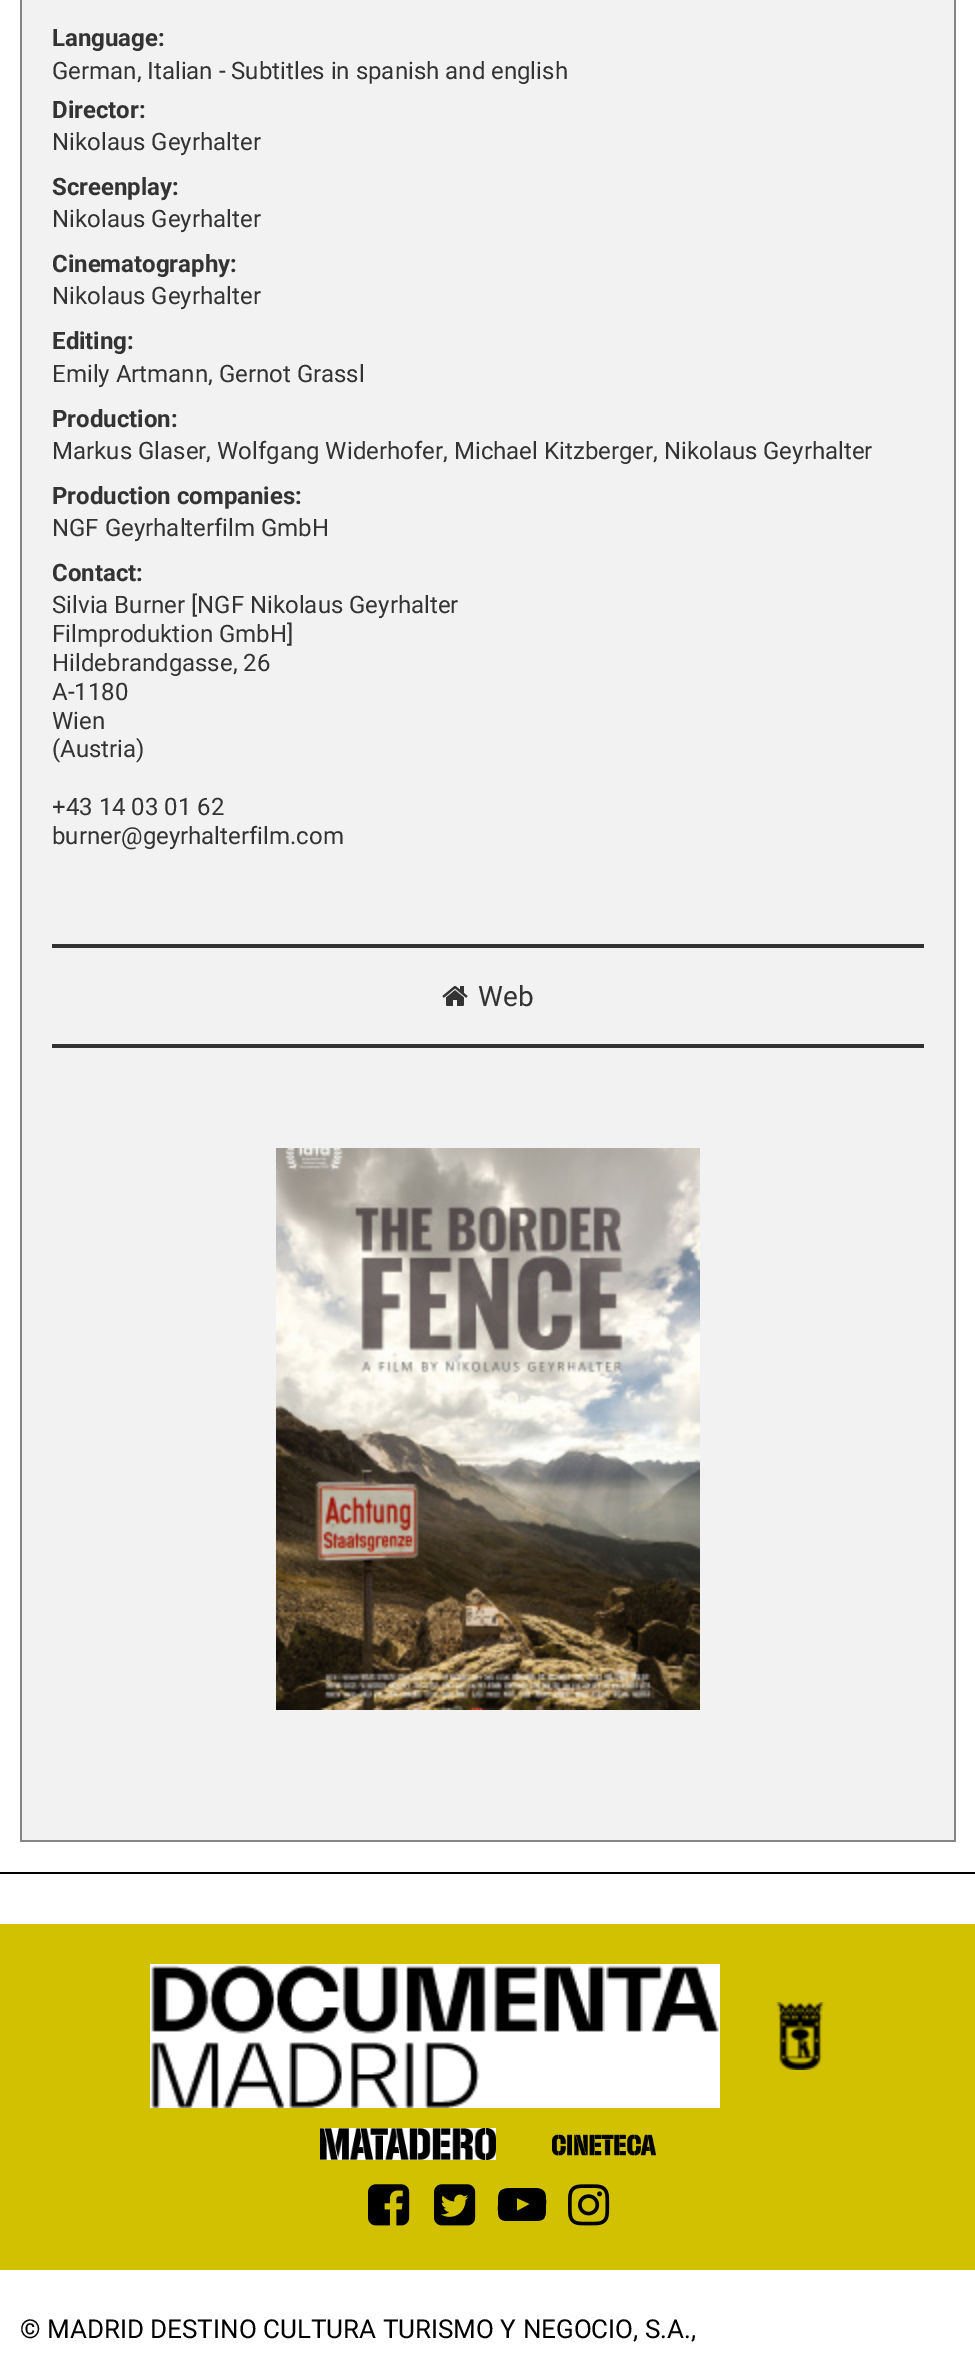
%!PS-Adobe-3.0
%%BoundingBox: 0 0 975 2362
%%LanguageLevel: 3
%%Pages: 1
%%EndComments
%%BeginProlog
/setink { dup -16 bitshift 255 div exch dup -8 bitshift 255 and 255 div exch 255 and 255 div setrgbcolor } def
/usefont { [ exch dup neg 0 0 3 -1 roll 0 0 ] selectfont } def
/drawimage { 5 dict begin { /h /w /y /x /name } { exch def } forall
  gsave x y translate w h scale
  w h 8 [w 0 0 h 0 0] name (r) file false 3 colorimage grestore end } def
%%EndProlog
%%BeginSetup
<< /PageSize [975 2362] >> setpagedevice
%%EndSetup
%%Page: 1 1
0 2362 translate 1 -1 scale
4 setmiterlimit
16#FFFFFF setink
0 0 975 2362 rectfill
16#F2F2F2 setink
22 0 932 1840 rectfill
16#858585 setink
956 -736 moveto 956 1842 lineto 954 1840 lineto 954 -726 lineto closepath fill
20 1840 936 2 rectfill
20 1842 moveto 20 -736 lineto 22 -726 lineto 22 1840 lineto closepath fill
16#333333 setink
52 944 872 4 rectfill
/Roboto-Bold 24 usefont
52 46 moveto (Language:) show
/Roboto-Regular 24 usefont
52 79 moveto (German, Italian - Subtitles in spanish and english) show
/Roboto-Bold 24 usefont
52 118 moveto (Director:) show
/Roboto-Regular 24 usefont
52 150 moveto (Nikolaus Geyrhalter) show
/Roboto-Bold 24 usefont
52 195 moveto (Screenplay:) show
/Roboto-Regular 24 usefont
52 227 moveto (Nikolaus Geyrhalter) show
/Roboto-Bold 24 usefont
52 272 moveto (Cinematography:) show
/Roboto-Regular 24 usefont
52 304 moveto (Nikolaus Geyrhalter) show
/Roboto-Bold 24 usefont
52 349 moveto (Editing:) show
/Roboto-Regular 24 usefont
52 382 moveto (Emily Artmann, Gernot Grassl) show
/Roboto-Bold 24 usefont
52 427 moveto (Production:) show
/Roboto-Regular 24 usefont
52 459 moveto (Markus Glaser, Wolfgang Widerhofer, Michael Kitzberger, Nikolaus Geyrhalter) show
/Roboto-Bold 24 usefont
52 504 moveto (Production companies:) show
/Roboto-Regular 24 usefont
52 536 moveto (NGF Geyrhalterfilm GmbH) show
/Roboto-Bold 24 usefont
52 581 moveto (Contact:) show
/Roboto-Regular 24 usefont
[
    [(Silvia Burner [NGF Nikolaus Geyrhalter) 52 613]
    [(Filmproduktion GmbH]) 52 642]
    [(Hildebrandgasse, 26) 52 671]
    [(A-1180) 52 700]
    [(Wien) 52 729]
    [(\(Austria\)) 52 757]
    [(+43 14 03 01 62) 52 815]
    [(burner@geyrhalterfilm.com) 52 844]
] { aload pop moveto show } forall
52 1044 872 4 rectfill
(img1.raw) 442 986 26 20 drawimage
/Roboto-Regular 28 usefont
478 1006 moveto (Web) show
(img2.raw) 276 1148 424 562 drawimage
16#000000 setink
0 1872 975 2 rectfill
16#D2C100 setink
0 1924 975 346 rectfill
(img3.raw) 150 1964 570 144 drawimage
(img4.raw) 776 2002 49 68 drawimage
(img5.raw) 320 2128 176 32 drawimage
(img6.raw) 552 2134 104 22 drawimage
(img7.raw) 368 2184 42 42 drawimage
(img8.raw) 434 2184 42 42 drawimage
16#000000 setink
517 2211 moveto 530 2204 lineto 517 2198 lineto closepath 522 2188 moveto 536 2188 lineto 547 2189 546 2195 546 2205 curveto 546 2217 546 2221 535 2221 curveto 508 2221 lineto 497 2221 498 2215 498 2205 curveto 498 2193 498 2189 509 2188 curveto closepath fill
(img9.raw) 568 2184 42 42 drawimage
/Roboto-Regular 26 usefont
20 2338 moveto (© MADRID DESTINO CULTURA TURISMO Y NEGOCIO, S.A.,) show
showpage
%%EOF
